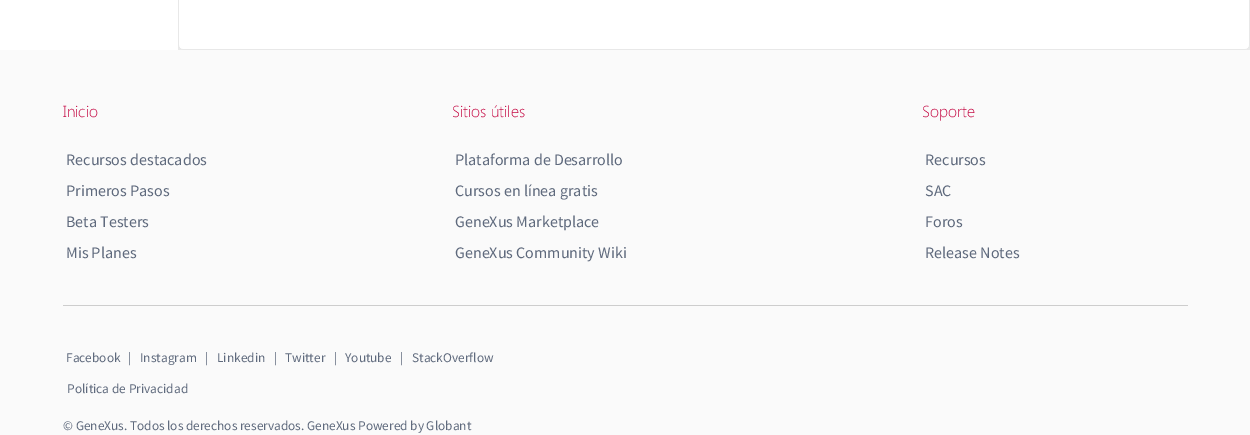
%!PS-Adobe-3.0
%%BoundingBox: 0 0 1250 435
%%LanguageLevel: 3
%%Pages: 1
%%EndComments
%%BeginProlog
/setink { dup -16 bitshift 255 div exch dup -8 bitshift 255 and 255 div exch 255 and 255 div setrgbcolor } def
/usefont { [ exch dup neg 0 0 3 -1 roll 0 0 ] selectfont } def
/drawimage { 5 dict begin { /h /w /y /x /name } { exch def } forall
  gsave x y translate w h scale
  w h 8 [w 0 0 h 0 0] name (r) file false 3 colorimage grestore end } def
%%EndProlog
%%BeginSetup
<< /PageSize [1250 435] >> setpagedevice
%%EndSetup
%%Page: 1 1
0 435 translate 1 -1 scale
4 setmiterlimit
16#FFFFFF setink
0 0 1250 435 rectfill
(img1.raw) 178 0 1072 50 drawimage
16#FAFAFA setink
0 50 1250 385 rectfill
/SegoeUI-Light 16 usefont
16#C60C46 setink
63 117 moveto (Inicio) show
/SourceSansPro-Regular 16 usefont
16#5F6A7D setink
[
    [(Recursos destacados) 66 165]
    [(Primeros Pasos) 66 196]
    [(Beta Testers) 66 227]
    [(Mis Planes) 66 258]
] { aload pop moveto show } forall
/SegoeUI-Light 16 usefont
16#C60C46 setink
452 117 moveto (Sitios útiles) show
/SourceSansPro-Regular 16 usefont
16#5F6A7D setink
[
    [(Plataforma de Desarrollo) 455 165]
    [(Cursos en línea gratis) 455 196]
    [(GeneXus Marketplace) 455 227]
    [(GeneXus Community Wiki) 455 258]
] { aload pop moveto show } forall
/SegoeUI-Light 16 usefont
16#C60C46 setink
922 117 moveto (Soporte) show
/SourceSansPro-Regular 16 usefont
16#5F6A7D setink
[
    [(Recursos) 925 165]
    [(SAC) 925 196]
    [(Foros) 925 227]
    [(Release Notes) 925 258]
] { aload pop moveto show } forall
16#CDCDCD setink
63 305 1125 1 rectfill
/SourceSansPro-Regular 13.3 usefont
16#5F6A7D setink
[
    [(Facebook) 66 362]
    [(|) 128 362]
    [(Instagram) 140 362]
    [(|) 205 362]
    [(Linkedin) 217 362]
    [(|) 274 362]
    [(Twitter) 285 362]
    [(|) 334 362]
    [(Youtube) 345 362]
    [(|) 400 362]
    [(StackOverflow) 412 362]
    [(Política de Privacidad) 67 393]
    [(© GeneXus. Todos los derechos reservados. GeneXus Powered by Globant) 63 430]
] { aload pop moveto show } forall
showpage
%%EOF
